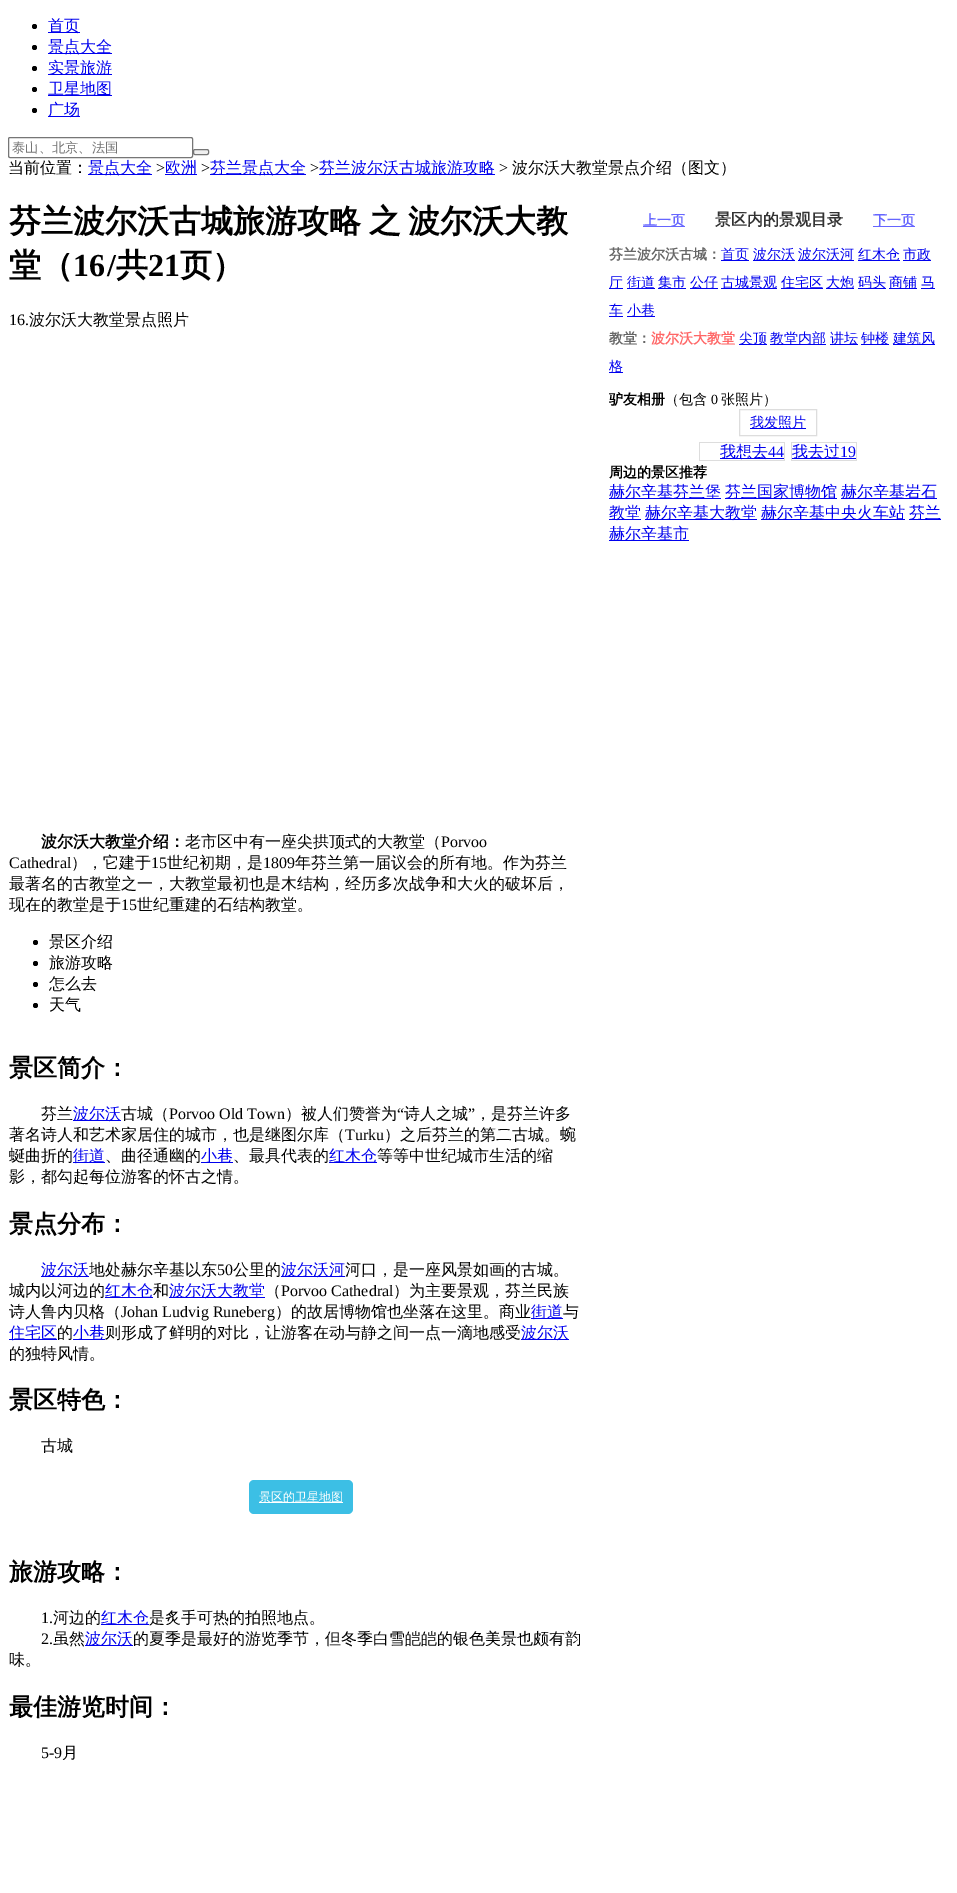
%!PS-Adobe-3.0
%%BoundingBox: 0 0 957 1893
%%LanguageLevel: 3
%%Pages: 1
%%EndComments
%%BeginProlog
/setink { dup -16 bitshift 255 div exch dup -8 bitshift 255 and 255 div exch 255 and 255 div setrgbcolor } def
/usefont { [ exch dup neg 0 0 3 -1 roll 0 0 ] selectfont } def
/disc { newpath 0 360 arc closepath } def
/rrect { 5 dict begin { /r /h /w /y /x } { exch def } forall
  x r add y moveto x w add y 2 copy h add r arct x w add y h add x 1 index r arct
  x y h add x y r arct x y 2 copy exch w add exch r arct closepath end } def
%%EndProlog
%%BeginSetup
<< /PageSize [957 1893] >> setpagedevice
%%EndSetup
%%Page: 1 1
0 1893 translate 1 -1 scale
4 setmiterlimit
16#FFFFFF setink
0 0 957 1893 rectfill
16#000000 setink
34.5 26.5 2.5 disc fill
16#0000EE setink
48 32 32 1 rectfill
/WenQuanYiZenHei-Medium 16 usefont
48 31 moveto (首页) show
16#000000 setink
34.5 47.5 2.5 disc fill
16#0000EE setink
48 53 64 1 rectfill
48 52 moveto (景点大全) show
16#000000 setink
34.5 68.5 2.5 disc fill
16#0000EE setink
48 74 64 1 rectfill
48 73 moveto (实景旅游) show
16#000000 setink
34.5 89.5 2.5 disc fill
16#0000EE setink
48 95 64 1 rectfill
48 94 moveto (卫星地图) show
16#000000 setink
34.5 110.5 2.5 disc fill
16#0000EE setink
48 116 32 1 rectfill
48 115 moveto (广场) show
16#767676 setink
8.5 137.5 184 20 1.5 rrect stroke
/WenQuanYiZenHei-Medium 13.25 usefont
16#757575 setink
12 152 moveto (泰山、北京、法国) show
16#EFEFEF setink
193.5 149.5 15 5 1.5 rrect gsave fill grestore
16#767676 setink
stroke
/WenQuanYiZenHei-Medium 16 usefont
16#000000 setink
8 173 moveto (当前位置：) show
16#0000EE setink
88 174 64 1 rectfill
88 173 moveto (景点大全) show
/LiberationSerif-Regular 16 usefont
16#000000 setink
156 173 moveto (>) show
16#0000EE setink
165 174 32 1 rectfill
/WenQuanYiZenHei-Medium 16 usefont
165 173 moveto (欧洲) show
/LiberationSerif-Regular 16 usefont
16#000000 setink
201 173 moveto (>) show
16#0000EE setink
210 174 96 1 rectfill
/WenQuanYiZenHei-Medium 16 usefont
210 173 moveto (芬兰景点大全) show
/LiberationSerif-Regular 16 usefont
16#000000 setink
310 173 moveto (>) show
16#0000EE setink
319 174 176 1 rectfill
/WenQuanYiZenHei-Medium 16 usefont
319 173 moveto (芬兰波尔沃古城旅游攻略) show
/LiberationSerif-Regular 16 usefont
16#000000 setink
499 173 moveto (>) show
/WenQuanYiZenHei-Medium 16 usefont
512 173 moveto (波尔沃大教堂景点介绍（图文）) show
/WenQuanYiZenHei-Bold 32 usefont
9 232 moveto -2 0 32 (芬兰波尔沃古城旅游攻略 之 波尔沃大教) widthshow
9 276 moveto (堂（) show
/LiberationSerif-Bold 32 usefont
73 276 moveto (16) show
107 276 moveto (/) show
/WenQuanYiZenHei-Bold 32 usefont
116 276 moveto (共) show
/LiberationSerif-Bold 32 usefont
148 276 moveto (21) show
/WenQuanYiZenHei-Bold 32 usefont
180 276 moveto (页）) show
/LiberationSerif-Regular 16 usefont
9 325 moveto (16.) show
/WenQuanYiZenHei-Medium 16 usefont
29 325 moveto (波尔沃大教堂景点照片) show
/WenQuanYiZenHei-Bold 16 usefont
41 847 moveto (波尔沃大教堂介绍：) show
/WenQuanYiZenHei-Medium 16 usefont
185 847 moveto (老市区中有一座尖拱顶式的大教堂（) show
/LiberationSerif-Regular 16 usefont
441 847 moveto (Porvoo) show
9 868 moveto (Cathedral) show
/WenQuanYiZenHei-Medium 16 usefont
71 868 moveto (），它建于) show
/LiberationSerif-Regular 16 usefont
151 868 moveto (15) show
/WenQuanYiZenHei-Medium 16 usefont
167 868 moveto (世纪初期，是) show
/LiberationSerif-Regular 16 usefont
263 868 moveto (1809) show
/WenQuanYiZenHei-Medium 16 usefont
[
    [(年芬兰第一届议会的所有地。作为芬兰) 295 868]
    [(最著名的古教堂之一，大教堂最初也是木结构，经历多次战争和大火的破坏后，) 9 889]
    [(现在的教堂是于) 9 910]
] { aload pop moveto show } forall
/LiberationSerif-Regular 16 usefont
121 910 moveto (15) show
/WenQuanYiZenHei-Medium 16 usefont
137 910 moveto (世纪重建的石结构教堂。) show
35.5 942.5 2.5 disc fill
49 947 moveto (景区介绍) show
35.5 963.5 2.5 disc fill
49 968 moveto (旅游攻略) show
35.5 984.5 2.5 disc fill
49 989 moveto (怎么去) show
35.5 1005.5 2.5 disc fill
49 1010 moveto (天气) show
/WenQuanYiZenHei-Bold 24 usefont
9 1076 moveto (景区简介：) show
/WenQuanYiZenHei-Medium 16 usefont
41 1119 moveto (芬兰) show
16#0000EE setink
73 1120 48 1 rectfill
73 1119 moveto (波尔沃) show
16#000000 setink
121 1119 moveto (古城（) show
/LiberationSerif-Regular 16 usefont
169 1119 moveto (Porvoo Old Town) show
/WenQuanYiZenHei-Medium 16 usefont
285 1119 moveto (）被人们赞誉为) show
/LiberationSerif-Regular 16 usefont
397 1119 moveto (“) show
/WenQuanYiZenHei-Medium 16 usefont
404 1119 moveto (诗人之城) show
/LiberationSerif-Regular 16 usefont
468 1119 moveto (”) show
/WenQuanYiZenHei-Medium 16 usefont
475 1119 moveto (，是芬兰许多) show
9 1140 moveto (著名诗人和艺术家居住的城市，也是继图尔库（) show
/LiberationSerif-Regular 16 usefont
345 1140 moveto (Turku) show
/WenQuanYiZenHei-Medium 16 usefont
384 1140 moveto (）之后芬兰的第二古城。蜿) show
9 1161 moveto (蜒曲折的) show
16#0000EE setink
73 1162 32 1 rectfill
73 1161 moveto (街道) show
16#000000 setink
105 1161 moveto (、曲径通幽的) show
16#0000EE setink
201 1162 32 1 rectfill
201 1161 moveto (小巷) show
16#000000 setink
233 1161 moveto (、最具代表的) show
16#0000EE setink
329 1162 48 1 rectfill
329 1161 moveto (红木仓) show
16#000000 setink
377 1161 moveto (等等中世纪城市生活的缩) show
9 1182 moveto (影，都勾起每位游客的怀古之情。) show
/WenQuanYiZenHei-Bold 24 usefont
9 1232 moveto (景点分布：) show
16#0000EE setink
41 1276 48 1 rectfill
/WenQuanYiZenHei-Medium 16 usefont
41 1275 moveto (波尔沃) show
16#000000 setink
89 1275 moveto (地处赫尔辛基以东) show
/LiberationSerif-Regular 16 usefont
217 1275 moveto (50) show
/WenQuanYiZenHei-Medium 16 usefont
233 1275 moveto (公里的) show
16#0000EE setink
281 1276 64 1 rectfill
281 1275 moveto (波尔沃河) show
16#000000 setink
345 1275 moveto (河口，是一座风景如画的古城。) show
9 1296 moveto (城内以河边的) show
16#0000EE setink
105 1297 48 1 rectfill
105 1296 moveto (红木仓) show
16#000000 setink
153 1296 moveto (和) show
16#0000EE setink
169 1297 96 1 rectfill
169 1296 moveto (波尔沃大教堂) show
16#000000 setink
265 1296 moveto (（) show
/LiberationSerif-Regular 16 usefont
281 1296 moveto (Porvoo Cathedral) show
/WenQuanYiZenHei-Medium 16 usefont
393 1296 moveto (）为主要景观，芬兰民族) show
9 1317 moveto (诗人鲁内贝格（) show
/LiberationSerif-Regular 16 usefont
121 1317 moveto (Johan Ludvig Runeberg) show
/WenQuanYiZenHei-Medium 16 usefont
275 1317 moveto (）的故居博物馆也坐落在这里。商业) show
16#0000EE setink
531 1318 32 1 rectfill
531 1317 moveto (街道) show
16#000000 setink
563 1317 moveto (与) show
16#0000EE setink
9 1339 48 1 rectfill
9 1338 moveto (住宅区) show
16#000000 setink
57 1338 moveto (的) show
16#0000EE setink
73 1339 32 1 rectfill
73 1338 moveto (小巷) show
16#000000 setink
105 1338 moveto (则形成了鲜明的对比，让游客在动与静之间一点一滴地感受) show
16#0000EE setink
521 1339 48 1 rectfill
521 1338 moveto (波尔沃) show
16#000000 setink
9 1359 moveto (的独特风情。) show
/WenQuanYiZenHei-Bold 24 usefont
9 1408 moveto (景区特色：) show
/WenQuanYiZenHei-Medium 16 usefont
41 1451 moveto (古城) show
16#3CBFE5 setink
249 1480 104 34 5 rrect fill
16#FFFFFF setink
259 1502 84 1 rectfill
/WenQuanYiZenHei-Medium 12 usefont
259 1501 moveto (景区的卫星地图) show
/WenQuanYiZenHei-Bold 24 usefont
16#000000 setink
9 1580 moveto (旅游攻略：) show
/LiberationSerif-Regular 16 usefont
41 1623 moveto (1.) show
/WenQuanYiZenHei-Medium 16 usefont
53 1623 moveto (河边的) show
16#0000EE setink
101 1624 48 1 rectfill
101 1623 moveto (红木仓) show
16#000000 setink
149 1623 moveto (是炙手可热的拍照地点。) show
/LiberationSerif-Regular 16 usefont
41 1644 moveto (2.) show
/WenQuanYiZenHei-Medium 16 usefont
53 1644 moveto (虽然) show
16#0000EE setink
85 1645 48 1 rectfill
85 1644 moveto (波尔沃) show
16#000000 setink
133 1644 moveto (的夏季是最好的游览季节，但冬季白雪皑皑的银色美景也颇有韵) show
9 1665 moveto (味。) show
/WenQuanYiZenHei-Bold 24 usefont
9 1715 moveto (最佳游览时间：) show
/LiberationSerif-Regular 16 usefont
41 1758 moveto (5-9) show
/WenQuanYiZenHei-Medium 16 usefont
62 1758 moveto (月) show
16#6666FF setink
643 226 42 1 rectfill
/WenQuanYiZenHei-Bold 14 usefont
643 225 moveto (上一页) show
/WenQuanYiZenHei-Bold 16 usefont
16#333333 setink
715 225 moveto (景区内的景观目录) show
16#6666FF setink
873 226 42 1 rectfill
/WenQuanYiZenHei-Bold 14 usefont
873 225 moveto (下一页) show
16#666666 setink
609 259 moveto (芬兰波尔沃古城：) show
16#0000EE setink
721 260 28 1 rectfill
/WenQuanYiZenHei-Medium 14 usefont
721 259 moveto (首页) show
753 260 42 1 rectfill
753 259 moveto (波尔沃) show
798 260 56 1 rectfill
798 259 moveto (波尔沃河) show
858 260 42 1 rectfill
858 259 moveto (红木仓) show
903 260 28 1 rectfill
903 259 moveto (市政) show
609 288 14 1 rectfill
609 287 moveto (厅) show
627 288 28 1 rectfill
627 287 moveto (街道) show
658 288 28 1 rectfill
658 287 moveto (集市) show
690 288 28 1 rectfill
690 287 moveto (公仔) show
721 288 56 1 rectfill
721 287 moveto (古城景观) show
781 288 42 1 rectfill
781 287 moveto (住宅区) show
826 288 28 1 rectfill
826 287 moveto (大炮) show
858 288 28 1 rectfill
858 287 moveto (码头) show
889 288 28 1 rectfill
889 287 moveto (商铺) show
921 288 14 1 rectfill
921 287 moveto (马) show
609 316 14 1 rectfill
609 315 moveto (车) show
627 316 28 1 rectfill
627 315 moveto (小巷) show
/WenQuanYiZenHei-Bold 14 usefont
16#666666 setink
609 343 moveto (教堂：) show
16#FF6666 setink
651 343 moveto (波尔沃大教堂) show
16#0000EE setink
739 344 28 1 rectfill
/WenQuanYiZenHei-Medium 14 usefont
739 343 moveto (尖顶) show
770 344 56 1 rectfill
770 343 moveto (教堂内部) show
830 344 28 1 rectfill
830 343 moveto (讲坛) show
861 344 28 1 rectfill
861 343 moveto (钟楼) show
893 344 42 1 rectfill
893 343 moveto (建筑风) show
609 372 14 1 rectfill
609 371 moveto (格) show
/WenQuanYiZenHei-Bold 14 usefont
16#000000 setink
609 404 moveto (驴友相册) show
/WenQuanYiZenHei-Medium 14 usefont
665 404 moveto (（包含) show
/LiberationSerif-Regular 14 usefont
711 404 moveto (0) show
/WenQuanYiZenHei-Medium 14 usefont
721 404 moveto (张照片）) show
16#DDDDDD setink
739.5 409.5 77 26 rectstroke
16#0000EE setink
750 428 56 1 rectfill
750 427 moveto (我发照片) show
720 458 64 1 rectfill
/WenQuanYiZenHei-Medium 16 usefont
720 457 moveto (我想去) show
[
    [699 442 86 1 16#DDDDDD]
    [699 460 69 1 16#DDDDDD]
    [699 442 1 19 16#DDDDDD]
    [784 442 1 19 16#DDDDDD]
    [768 460 17 1 16#DDDDDD]
] { aload pop setink rectfill } forall
/LiberationSerif-Regular 16 usefont
16#0000EE setink
768 457 moveto (44) show
792 458 64 1 rectfill
/WenQuanYiZenHei-Medium 16 usefont
792 457 moveto (我去过) show
[
    [791 442 66 1 16#DDDDDD]
    [791 460 49 1 16#DDDDDD]
    [791 442 1 19 16#DDDDDD]
] { aload pop setink rectfill } forall
/LiberationSerif-Regular 16 usefont
16#0000EE setink
840 457 moveto (19) show
16#DDDDDD setink
856 442 1 19 rectfill
840 460 17 1 rectfill
/WenQuanYiZenHei-Bold 14 usefont
16#000000 setink
609 477 moveto (周边的景区推荐) show
16#0000EE setink
609 498 112 1 rectfill
/WenQuanYiZenHei-Medium 16 usefont
609 497 moveto (赫尔辛基芬兰堡) show
725 498 112 1 rectfill
725 497 moveto (芬兰国家博物馆) show
841 498 96 1 rectfill
841 497 moveto (赫尔辛基岩石) show
609 519 32 1 rectfill
609 518 moveto (教堂) show
645 519 112 1 rectfill
645 518 moveto (赫尔辛基大教堂) show
761 519 144 1 rectfill
761 518 moveto (赫尔辛基中央火车站) show
909 519 32 1 rectfill
909 518 moveto (芬兰) show
609 540 80 1 rectfill
609 539 moveto (赫尔辛基市) show
showpage
%%EOF
